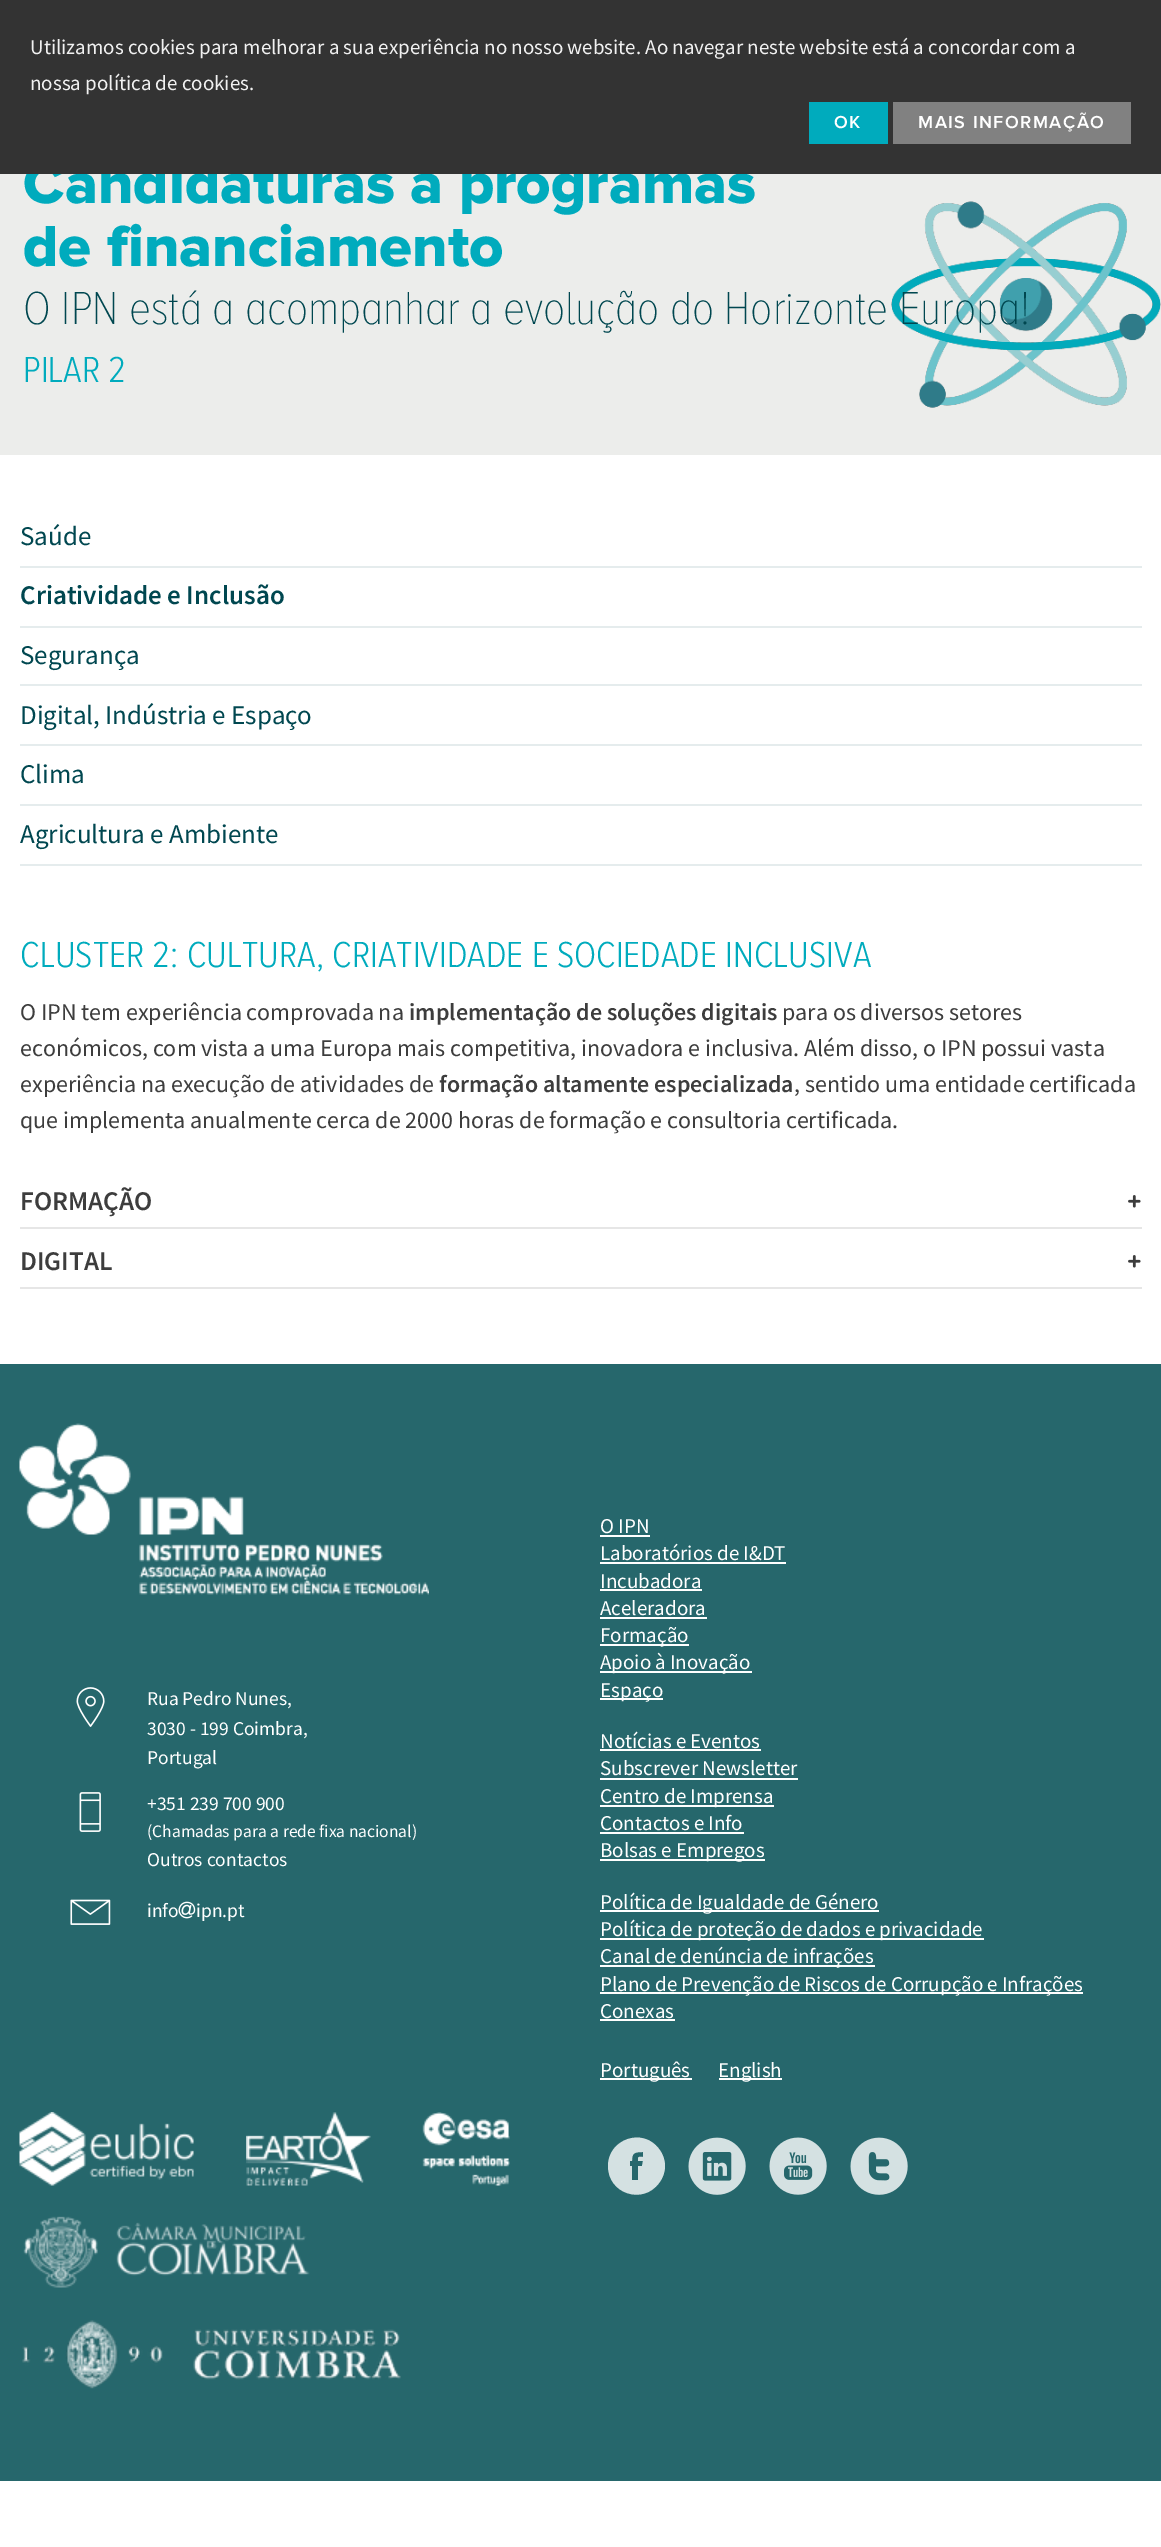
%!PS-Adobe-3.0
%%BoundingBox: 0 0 1161 2547
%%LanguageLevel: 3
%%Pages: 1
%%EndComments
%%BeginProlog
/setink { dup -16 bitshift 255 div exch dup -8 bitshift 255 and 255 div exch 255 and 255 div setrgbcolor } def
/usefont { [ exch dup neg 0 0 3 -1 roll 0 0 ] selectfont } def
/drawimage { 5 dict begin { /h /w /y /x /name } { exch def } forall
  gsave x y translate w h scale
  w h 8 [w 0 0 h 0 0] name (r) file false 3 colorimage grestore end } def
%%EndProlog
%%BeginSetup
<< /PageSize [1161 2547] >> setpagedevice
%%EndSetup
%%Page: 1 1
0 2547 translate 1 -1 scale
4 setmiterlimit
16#FFFFFF setink
0 0 1161 2547 rectfill
16#ECEDEB setink
0 174 1161 281 rectfill
/ProximaNova-ExtraBold 60 usefont
16#00ABBD setink
23 203 moveto (Candidaturas a programas) show
16#333333 setink
0 0 1161 174 rectfill
/SourceSansPro-Regular 21 usefont
16#F1F1F1 setink
30 54 moveto (Utilizamos cookies para melhorar a sua experiência no nosso website. Ao navegar neste website está a concordar com a) show
30 90 moveto (nossa política de cookies.) show
16#00ABBD setink
809 102 79 42 rectfill
/ProximaNova-SemiBold 18 usefont
16#FFFFFF setink
834 128 moveto 1.5 0 (OK) ashow
16#818181 setink
893 102 238 42 rectfill
16#FFFFFF setink
918 128 moveto 1.5 0 (MAIS INFORMAÇÃO) ashow
(img1.raw) 891 201 270 207 drawimage
/ProximaNova-ExtraBold 60 usefont
16#00ABBD setink
23 266 moveto (de financiamento) show
/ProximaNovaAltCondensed-Thin 48 usefont
16#004750 setink
23 324 moveto (O IPN está a acompanhar a evolução do Horizonte Europa!) show
/ProximaNovaAltCondensed-Light 37.5 usefont
16#00ABBD setink
23 382 moveto (PILAR 2) show
16#E5ECED setink
20 566 1122 2 rectfill
/SourceSansPro-Regular 27 usefont
16#004750 setink
20 545 moveto (Saúde) show
16#E5ECED setink
20 626 1122 2 rectfill
/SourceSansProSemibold-SemiBold 27 usefont
16#004750 setink
20 604 moveto (Criatividade e Inclusão) show
16#E5ECED setink
20 684 1122 2 rectfill
/SourceSansPro-Regular 27 usefont
16#004750 setink
20 664 moveto (Segurança) show
16#E5ECED setink
20 744 1122 2 rectfill
16#004750 setink
20 724 moveto (Digital, Indústria e Espaço) show
16#E5ECED setink
20 804 1122 2 rectfill
16#004750 setink
20 783 moveto (Clima) show
16#E5ECED setink
20 864 1122 2 rectfill
16#004750 setink
20 843 moveto (Agricultura e Ambiente) show
/ProximaNovaAltCondensed-Light 37.5 usefont
16#00ABBD setink
20 967 moveto (CLUSTER 2: CULTURA, CRIATIVIDADE E SOCIEDADE INCLUSIVA) show
/SourceSansPro-Regular 24 usefont
16#3D3D3D setink
20 1020 moveto (O IPN tem experiência comprovada na) show
/SourceSansProSemibold-SemiBold 24 usefont
409 1020 moveto (implementação de soluções digitais) show
/SourceSansPro-Regular 24 usefont
[
    [(para os diversos setores) 782 1020]
    [(económicos, com vista a uma Europa mais competitiva, inovadora e inclusiva. Além disso, o IPN possui vasta) 20 1056]
    [(experiência na execução de atividades de) 20 1092]
] { aload pop moveto show } forall
/SourceSansProSemibold-SemiBold 24 usefont
439 1092 moveto (formação altamente especializada) show
/SourceSansPro-Regular 24 usefont
794 1092 moveto (, sentido uma entidade certificada) show
20 1128 moveto (que implementa anualmente cerca de 2000 horas de formação e consultoria certificada.) show
16#E6E6E6 setink
20 1227 1122 2 rectfill
/SourceSansProSemibold-SemiBold 27 usefont
16#3D3D3D setink
20 1210 moveto (FORMAÇÃO) show
(img2.raw) 1128 1195 13 13 drawimage
16#E6E6E6 setink
20 1287 1122 2 rectfill
16#3D3D3D setink
20 1270 moveto (DIGITAL) show
(img2.raw) 1128 1255 13 13 drawimage
16#26676C setink
0 1364 1161 1117 rectfill
(img3.raw) 19 1423 410 172 drawimage
(img4.raw) 76 1687 29 40 drawimage
/SourceSansPro-Regular 19.5 usefont
16#FFFFFF setink
[
    [(Rua Pedro Nunes,) 147 1705]
    [(3030 - 199 Coimbra,) 147 1735]
    [(Portugal) 147 1764]
] { aload pop moveto show } forall
(img5.raw) 79 1792 22 40 drawimage
147 1810 moveto (+351 239 700 900) show
/SourceSansPro-Regular 17.5 usefont
147 1837 moveto (\(Chamadas para a rede fixa nacional\)) show
/SourceSansPro-Regular 19.5 usefont
147 1866 moveto (Outros contactos) show
(img6.raw) 70 1899 41 26 drawimage
147 1917 moveto (info) show
(img7.raw) 178 1901 18 18 drawimage
196 1917 moveto (ipn.pt) show
/SourceSansPro-Regular 21 usefont
600 1533 moveto (O IPN) show
600 1535 50 2 rectfill
600 1560 moveto (Laboratórios de I&DT) show
600 1562 186 2 rectfill
600 1588 moveto (Incubadora) show
600 1589 102 2 rectfill
600 1615 moveto (Aceleradora) show
600 1617 107 2 rectfill
600 1644 89 2 rectfill
600 1642 moveto (Formação) show
600 1671 152 2 rectfill
600 1669 moveto (Apoio à Inovação) show
600 1698 63 2 rectfill
600 1697 moveto (Espaço) show
600 1748 moveto (Notícias e Eventos) show
600 1749 161 2 rectfill
600 1775 moveto (Subscrever Newsletter) show
600 1778 198 2 rectfill
600 1805 174 2 rectfill
600 1803 moveto (Centro de Imprensa) show
600 1830 moveto (Contactos e Info) show
600 1832 144 2 rectfill
600 1859 165 2 rectfill
600 1857 moveto (Bolsas e Empregos) show
600 1910 279 2 rectfill
600 1909 moveto (Política de Igualdade de Género) show
600 1938 384 2 rectfill
600 1936 moveto (Política de proteção de dados e privacidade) show
600 1965 275 2 rectfill
600 1963 moveto (Canal de denúncia de infrações) show
600 1992 483 2 rectfill
600 1991 moveto (Plano de Prevenção de Riscos de Corrupção e Infrações) show
600 2018 moveto (Conexas) show
600 2019 75 2 rectfill
600 2078 92 2 rectfill
600 2077 moveto (Português) show
719 2078 63 2 rectfill
718 2077 moveto (English) show
(img8.raw) 19 2112 175 74 drawimage
(img9.raw) 246 2112 125 74 drawimage
(img10.raw) 422 2112 88 74 drawimage
(img11.raw) 23 2216 287 72 drawimage
(img12.raw) 22 2320 379 69 drawimage
16#D4E1E2 setink
608 2166 moveto 608 2139 643 2127 659 2149 curveto 663 2154 665 2160 665 2166 curveto 665 2172 663 2178 659 2183 curveto 643 2205 608 2194 608 2166 curveto closepath 630 2166 moveto 632 2166 lineto 632 2180 lineto 638 2180 lineto 638 2166 lineto 642 2166 lineto 643 2161 lineto 638 2161 lineto 638 2156 638 2157 643 2157 curveto 643 2152 lineto 634 2152 632 2153 632 2161 curveto 630 2161 lineto closepath fill
(img13.raw) 688 2137 58 58 drawimage
(img14.raw) 769 2137 58 58 drawimage
(img15.raw) 850 2137 58 58 drawimage
showpage
%%EOF
